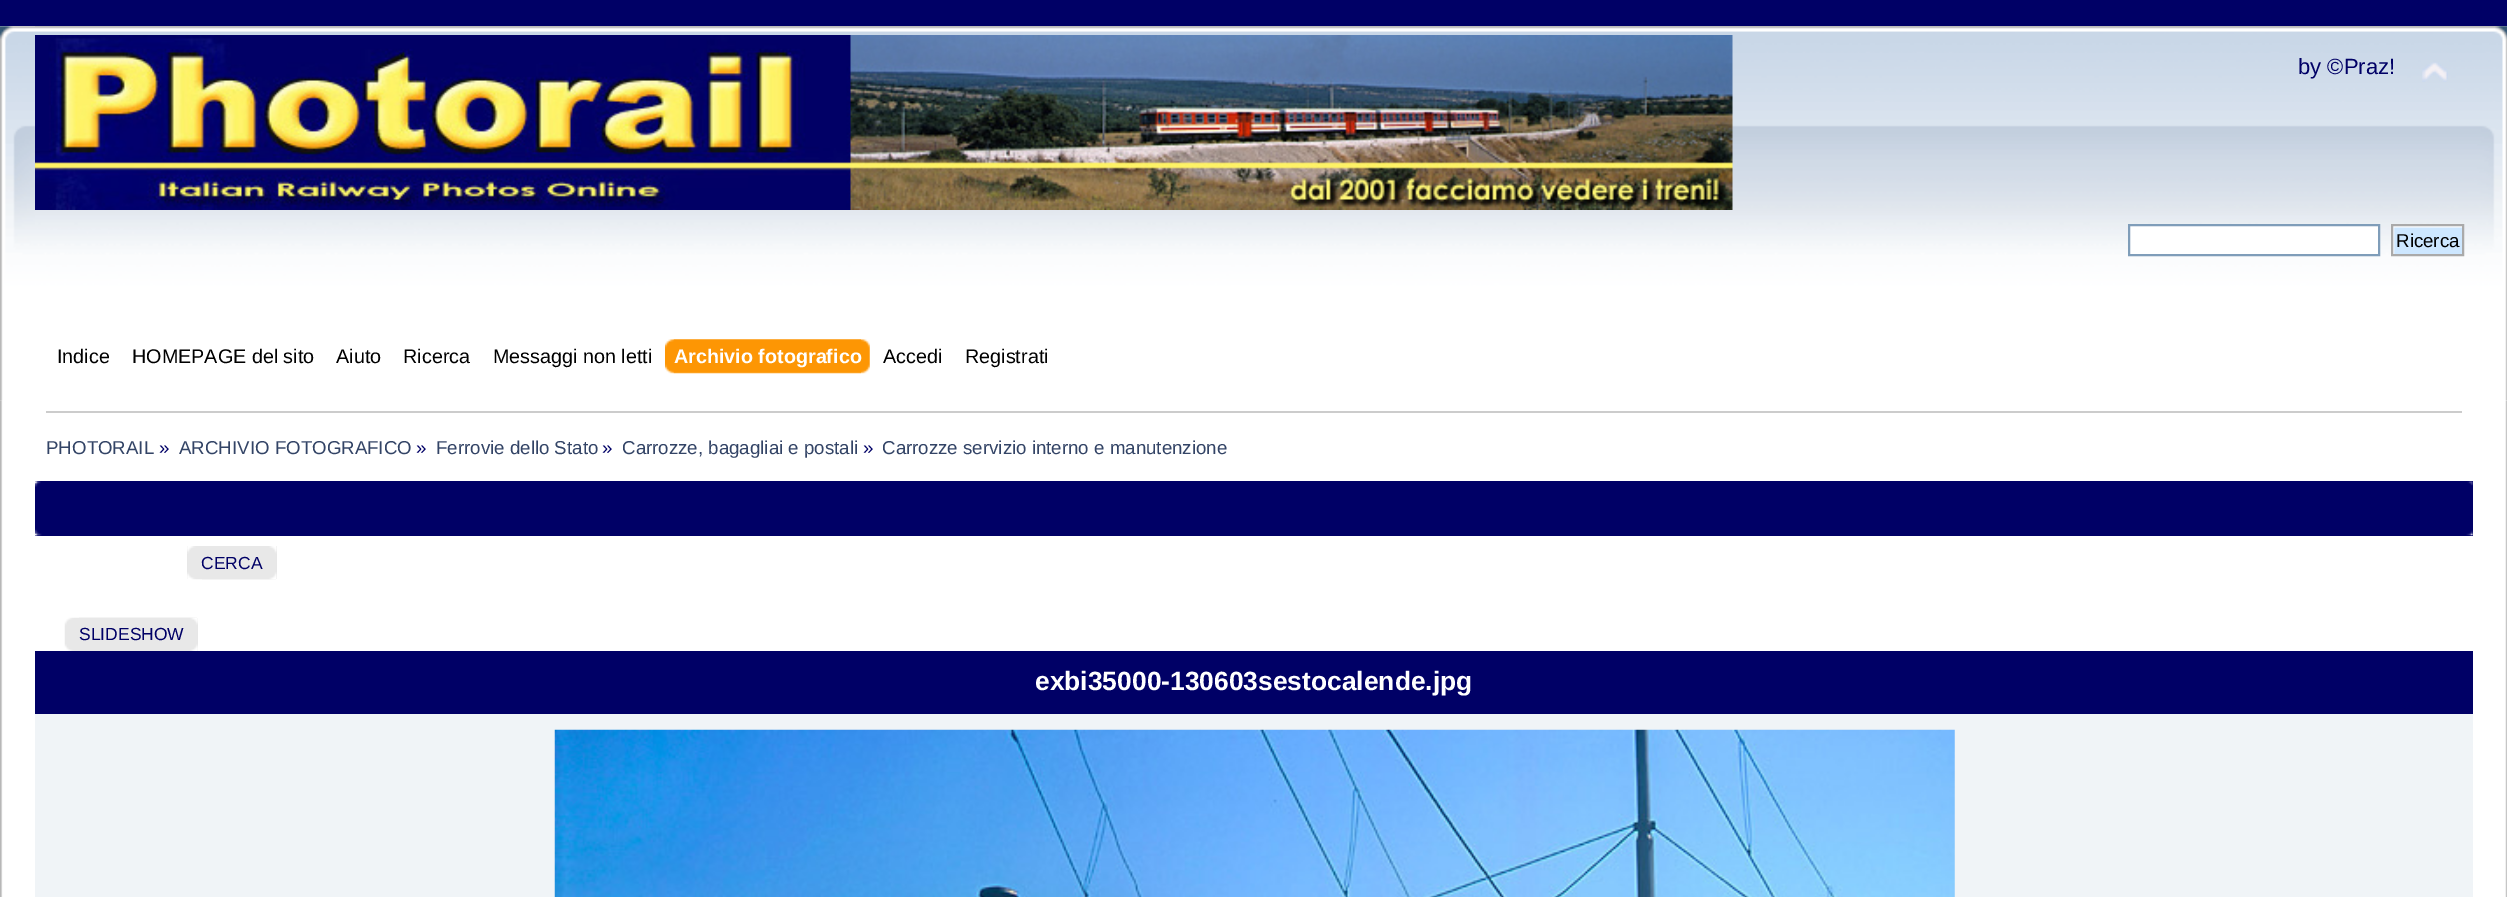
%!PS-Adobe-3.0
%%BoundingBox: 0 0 2507 897
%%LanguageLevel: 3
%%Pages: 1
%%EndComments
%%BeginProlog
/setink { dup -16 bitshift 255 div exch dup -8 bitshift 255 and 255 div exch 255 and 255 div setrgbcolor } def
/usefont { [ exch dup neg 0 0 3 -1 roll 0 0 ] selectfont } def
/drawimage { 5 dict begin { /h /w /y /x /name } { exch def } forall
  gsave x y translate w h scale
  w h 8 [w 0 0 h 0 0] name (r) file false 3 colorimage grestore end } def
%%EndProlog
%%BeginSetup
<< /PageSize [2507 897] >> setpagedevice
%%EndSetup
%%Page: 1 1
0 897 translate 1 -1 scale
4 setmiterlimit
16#000066 setink
0 0 2507 897 rectfill
(img1.raw) 0 26 2507 375 drawimage
(img2.raw) 35 26 2472 375 drawimage
(img3.raw) 35 35 1698 175 drawimage
/LiberationSans-Regular 22 usefont
2298 74 moveto (by ©Praz!) show
(img4.raw) 2422 62 26 20 drawimage
16#FFFFFF setink
2129 225 moveto 2379 225 lineto 2379 255 lineto 2129 255 lineto closepath gsave fill grestore
16#7F9DB9 setink
2 setlinewidth
stroke
(img5.raw) 2393 226 69 28 drawimage
16#AAAAAA setink
2392 225 71 30 rectstroke
/LiberationSans-Regular 18.7 usefont
16#000000 setink
2396 247 moveto (Ricerca) show
/LiberationSans-Regular 19.75 usefont
[
    [(Indice) 57 363]
    [(HOMEPAGE del sito) 132 363]
    [(Aiuto) 336 363]
    [(Ricerca) 403 363]
    [(Messaggi non letti) 493 363]
] { aload pop moveto show } forall
(img6.raw) 673 339 197 35 drawimage
(img7.raw) 665 339 196 35 drawimage
/LiberationSans-Bold 19.75 usefont
16#FFFFFF setink
674 363 moveto (Archivio fotografico) show
/LiberationSans-Regular 19.75 usefont
16#000000 setink
883 363 moveto (Accedi) show
965 363 moveto (Registrati) show
(img8.raw) 0 400 2507 497 drawimage
(img9.raw) 2505 400 2 497 drawimage
16#CCCCCC setink
46 411 2416 2 rectfill
/LiberationSans-Regular 18.7 usefont
16#334466 setink
46 454 moveto (PHOTORAIL) show
16#000066 setink
159 454 moveto (») show
16#334466 setink
179 454 moveto (ARCHIVIO FOTOGRAFICO) show
16#000066 setink
416 454 moveto (») show
16#334466 setink
436 454 moveto (Ferrovie dello Stato) show
16#000066 setink
602 454 moveto (») show
16#334466 setink
622 454 moveto (Carrozze, bagagliai e postali) show
16#000066 setink
863 454 moveto (») show
16#334466 setink
882 454 moveto (Carrozze servizio interno e manutenzione) show
16#000066 setink
35 481 2438 55 rectfill
(img10.raw) 35 481 7 55 drawimage
(img11.raw) 2466 481 7 55 drawimage
16#E8E8E8 setink
187 546 90 33 rectfill
(img12.raw) 187 546 89 34 drawimage
(img13.raw) 202 546 75 34 drawimage
/LiberationSans-Regular 17.5 usefont
16#000066 setink
201 569 moveto (CERCA) show
(img14.raw) 64 617 133 34 drawimage
(img15.raw) 79 617 119 34 drawimage
79 640 moveto (SLIDESHOW) show
35 651 2438 63 rectfill
/LiberationSans-Bold 26.4 usefont
16#FFFFFF setink
1035 690 moveto (exbi35000-130603sestocalende.jpg) show
16#F0F4F7 setink
35 714 2438 183 rectfill
(img16.raw) 554 729 1401 168 drawimage
showpage
%%EOF
